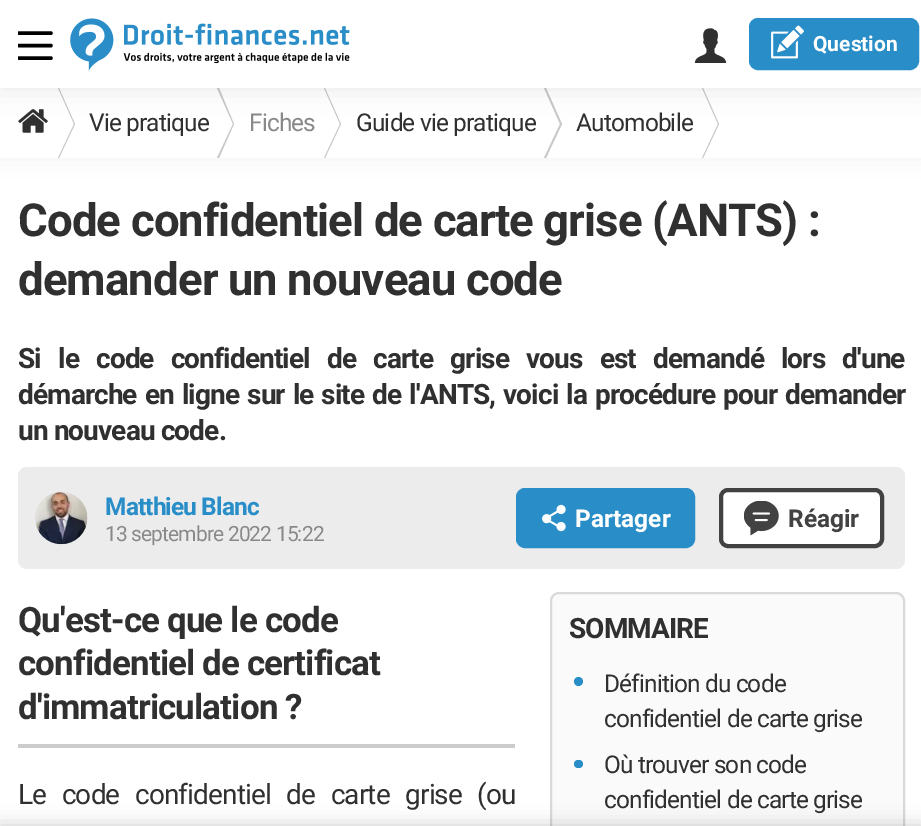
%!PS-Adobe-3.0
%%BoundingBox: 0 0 921 826
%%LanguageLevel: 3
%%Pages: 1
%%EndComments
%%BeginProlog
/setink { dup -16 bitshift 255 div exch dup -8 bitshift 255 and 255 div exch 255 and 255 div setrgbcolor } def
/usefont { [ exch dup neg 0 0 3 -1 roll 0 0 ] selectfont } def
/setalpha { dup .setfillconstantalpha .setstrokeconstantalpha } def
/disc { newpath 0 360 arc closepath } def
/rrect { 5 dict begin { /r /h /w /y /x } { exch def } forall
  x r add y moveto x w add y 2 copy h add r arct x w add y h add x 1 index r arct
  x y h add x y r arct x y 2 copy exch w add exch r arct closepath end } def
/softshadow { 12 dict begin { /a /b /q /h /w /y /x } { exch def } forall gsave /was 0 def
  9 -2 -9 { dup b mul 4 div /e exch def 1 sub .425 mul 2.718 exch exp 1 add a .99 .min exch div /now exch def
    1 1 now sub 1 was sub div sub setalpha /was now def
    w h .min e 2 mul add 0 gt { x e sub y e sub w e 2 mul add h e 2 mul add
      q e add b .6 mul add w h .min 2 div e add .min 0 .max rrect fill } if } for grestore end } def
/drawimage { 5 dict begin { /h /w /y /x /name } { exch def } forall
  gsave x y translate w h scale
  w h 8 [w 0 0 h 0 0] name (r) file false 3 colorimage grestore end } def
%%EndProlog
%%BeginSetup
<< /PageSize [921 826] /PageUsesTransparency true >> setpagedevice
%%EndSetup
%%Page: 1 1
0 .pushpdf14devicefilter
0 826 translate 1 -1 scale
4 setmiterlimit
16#FFFFFF setink
0 0 921 826 rectfill
16#000000 setink
0 88 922 70 0 12 0.05 softshadow
16#FFFFFF setink
0 88 921 70 rectfill
(img4.raw) 18 109 30 24 drawimage
16#C9C9C9 setink
58 88 moveto 59 88 lineto 75 124 lineto 59 158 lineto 58 158 lineto 74 124 lineto closepath eofill
217 88 moveto 219 88 lineto 234 124 lineto 219 158 lineto 217 158 lineto 233 124 lineto closepath eofill
324 88 moveto 325 88 lineto 341 124 lineto 325 158 lineto 324 158 lineto 340 124 lineto closepath eofill
544 88 moveto 546 88 lineto 562 124 lineto 546 158 lineto 544 158 lineto 560 124 lineto closepath eofill
702 88 moveto 703 88 lineto 719 124 lineto 703 158 lineto 702 158 lineto 718 124 lineto closepath eofill
16#000000 setink
0 0 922 88 0 13 0.1 softshadow
16#FFFFFF setink
0 0 921 88 rectfill
gsave
18 28 35 35 rectclip
16#000000 setink
3.5 setlinewidth
1 setlinecap
19 45.5 moveto 51 45.5 lineto 19 33 moveto 51 33 lineto 19 58 moveto 51 58 lineto stroke
grestore
(img1.raw) 70 18 280 53 drawimage
(img2.raw) 694 28 33 35 drawimage
16#298EC8 setink
751 20 166 48 7 rrect gsave fill grestore
4 setlinewidth
stroke
(img3.raw) 771 25 33 34 drawimage
/Roboto-Bold 21 usefont
16#FFFFFF setink
813 51 moveto (Question) show
/Roboto-Regular 24.5 usefont
16#303030 setink
89 131 moveto -0.88 0 (Vie pratique) ashow
16#898989 setink
249 131 moveto -0.88 0 (Fiches) ashow
16#303030 setink
356 131 moveto -0.88 0 (Guide vie pratique) ashow
576 131 moveto -0.88 0 (Automobile) ashow
/Roboto-Bold 45.5 usefont
18 236 moveto -0.88 0 (Code confidentiel de carte grise \(ANTS\) :) ashow
18 295 moveto -0.88 0 (demander un nouveau code) ashow
/Roboto-Bold 28 usefont
18 368 moveto 11 0 32 -0.88 0 (Si le code confidentiel de carte grise vous est demandé lors d'une) awidthshow
18 404 moveto 1.9 0 32 -0.88 0 (démarche en ligne sur le site de l'ANTS, voici la procédure pour demander) awidthshow
18 440 moveto -0.88 0 (un nouveau code.) ashow
16#ECECEC setink
18 467 887 102 9 rrect fill
(img5.raw) 35 491 53 54 drawimage
/Roboto-Bold 24.5 usefont
16#298EC8 setink
105 515 moveto -0.88 0 (Matthieu Blanc) ashow
/Roboto-Regular 21 usefont
16#898989 setink
105 541 moveto -0.88 0 (13 septembre 2022 15:22) ashow
16#298EC8 setink
518 490 175 56 7 rrect gsave fill grestore
stroke
(img6.raw) 542 504 24 28 drawimage
/Roboto-Bold 24.5 usefont
16#FFFFFF setink
575 527 moveto (Partager) show
721 490 161 56 7 rrect gsave fill grestore
16#424242 setink
stroke
(img7.raw) 744 501 35 35 drawimage
788 527 moveto (Réagir) show
16#CCCCCC setink
18 744 497 4 rectfill
/Roboto-Bold 35 usefont
16#303030 setink
18 632 moveto -0.88 0 (Qu'est-ce que le code) ashow
18 675 moveto -0.88 0 (confidentiel de certificat) ashow
18 719 moveto -0.88 0 (d'immatriculation ?) ashow
16#FAFAFA setink
551 593 353 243 8 rrect gsave fill grestore
16#D9D9D9 setink
2 setlinewidth
stroke
/Roboto-Bold 28 usefont
16#303030 setink
569 638 moveto -0.88 0 (SOMMAIRE) ashow
16#298EC8 setink
578.5 681.5 4.5 disc fill
/Roboto-Regular 24.5 usefont
16#303030 setink
604 692 moveto -0.88 0 (Définition du code) ashow
604 727 moveto -0.88 0 (confidentiel de carte grise) ashow
16#298EC8 setink
574 760 9 8 4 rrect fill
16#303030 setink
604 773 moveto -0.88 0 (Où trouver son code) ashow
604 808 moveto -0.88 0 (confidentiel de carte grise) ashow
/Roboto-Regular 28 usefont
18 804 moveto 9.5 0 32 -0.88 0 (Le code confidentiel de carte grise \(ou) awidthshow
16#000000 setink
0 826 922 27 0 9 0.2 softshadow
.poppdf14devicefilter showpage
%%EOF
